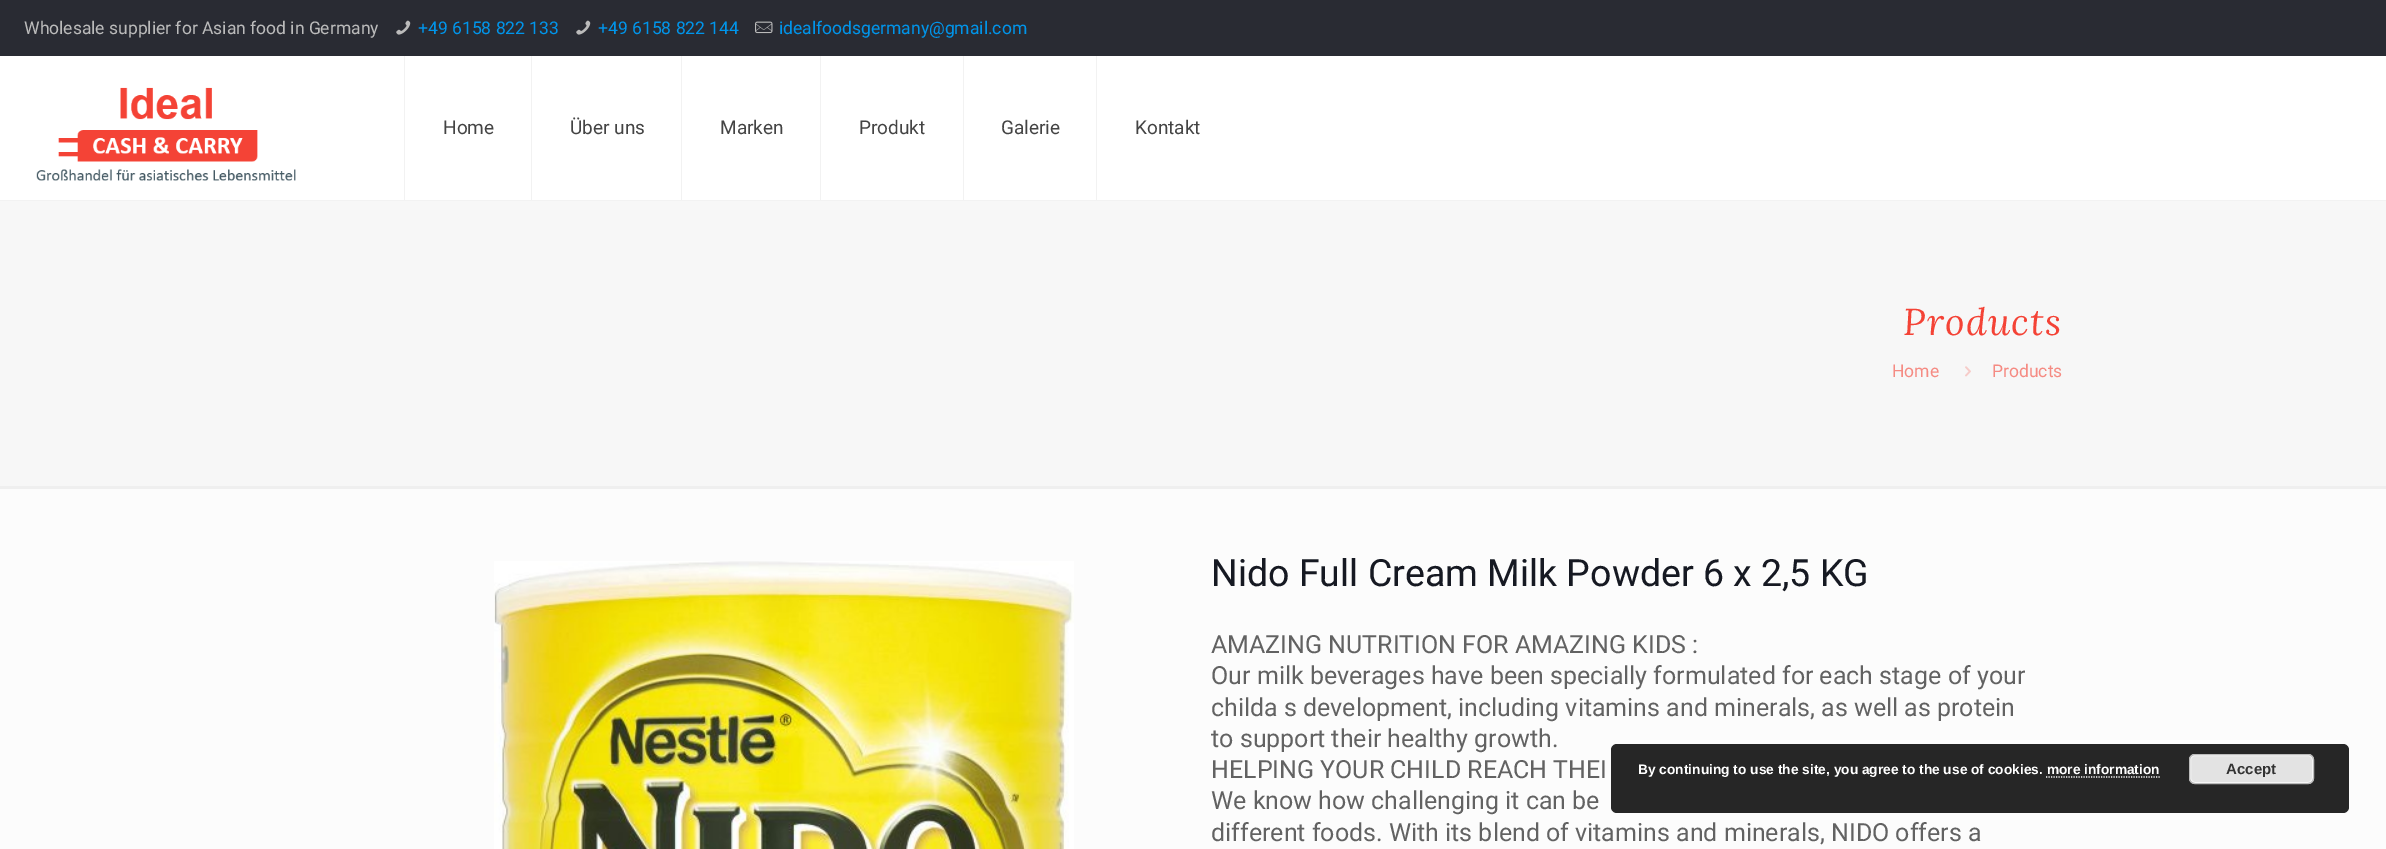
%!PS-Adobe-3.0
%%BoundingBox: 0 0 2386 849
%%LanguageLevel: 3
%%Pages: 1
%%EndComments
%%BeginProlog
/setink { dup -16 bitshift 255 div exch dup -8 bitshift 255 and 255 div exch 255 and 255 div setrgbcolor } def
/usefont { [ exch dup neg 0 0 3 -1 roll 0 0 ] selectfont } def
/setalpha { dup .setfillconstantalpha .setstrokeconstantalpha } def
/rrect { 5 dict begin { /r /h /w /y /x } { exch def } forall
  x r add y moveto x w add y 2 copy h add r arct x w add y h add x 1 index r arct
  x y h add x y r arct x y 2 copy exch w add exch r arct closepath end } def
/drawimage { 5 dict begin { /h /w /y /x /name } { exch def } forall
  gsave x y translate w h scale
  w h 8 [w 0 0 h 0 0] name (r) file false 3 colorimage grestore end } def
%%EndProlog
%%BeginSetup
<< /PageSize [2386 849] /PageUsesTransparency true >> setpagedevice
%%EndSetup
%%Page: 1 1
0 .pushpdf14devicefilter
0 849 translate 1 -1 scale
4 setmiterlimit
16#292B33 setink
0 0 2386 849 rectfill
/Roboto-Regular 17.5 usefont
16#BBBBBB setink
24 34 moveto (Wholesale supplier for Asian food in Germany) show
(img1.raw) 396 20 15 15 drawimage
16#0095EB setink
418 34 moveto (+49 6158 822 133) show
(img1.raw) 576 20 15 15 drawimage
598 34 moveto (+49 6158 822 144) show
(img2.raw) 755 21 18 13 drawimage
779 34 moveto (idealfoodsgermany@gmail.com) show
16#FFFFFF setink
0 56 2386 144 rectfill
16#F2F2F2 setink
0 200 2386 1 rectfill
(img3.raw) 36 87 260 94 drawimage
531 56 1 144 rectfill
404 56 1 144 rectfill
/Roboto-Regular 19 usefont
16#444444 setink
443 134 moveto (Home) show
16#F2F2F2 setink
681 56 1 144 rectfill
16#444444 setink
570 134 moveto (Über uns) show
16#F2F2F2 setink
820 56 1 144 rectfill
16#444444 setink
720 134 moveto (Marken) show
16#F2F2F2 setink
963 56 1 144 rectfill
16#444444 setink
859 134 moveto (Produkt) show
16#F2F2F2 setink
1096 56 1 144 rectfill
16#444444 setink
1001 134 moveto (Galerie) show
1135 134 moveto (Kontakt) show
16#F7F7F7 setink
0 201 2386 285 rectfill
/Lora-Italic 37.5 usefont
16#F44336 setink
1903 335 moveto 1.25 0 (Products) ashow
/Roboto-Regular 17.5 usefont
16#F58B83 setink
1892 377 moveto (Home) show
(img4.raw) 1965 366 6 11 drawimage
1992 377 moveto (Products) show
16#EFEFEF setink
0 486 2386 3 rectfill
16#FCFCFC setink
0 489 2386 360 rectfill
(img5.raw) 494 561 580 288 drawimage
/Roboto-Regular 37.5 usefont
16#161922 setink
1211 586 moveto (Nido Full Cream Milk Powder 6 x 2,5 KG) show
/Roboto-Regular 25 usefont
16#626262 setink
[
    [(AMAZING NUTRITION FOR AMAZING KIDS :) 1211 653]
    [(Our milk beverages have been specially formulated for each stage of your) 1211 684]
    [(childa s development, including vitamins and minerals, as well as protein) 1211 716]
    [(to support their healthy growth.) 1211 747]
    [(HELPING YOUR CHILD REACH THEI) 1211 778]
    [(We know how challenging it can be) 1211 809]
    [(different foods. With its blend of vitamins and minerals, NIDO offers a) 1211 841]
] { aload pop moveto show } forall
0.85 setalpha
16#000000 setink
1611 744 738 69 6 rrect fill
/LiberationSans-Bold 13.75 usefont
1 setalpha
16#FFFFFF setink
1638 774 moveto (By continuing to use the site, you agree to the use of cookies. more information) show
16#E3E3E3 setink
2189 754 125 30 6 rrect fill
16#F6F6F6 setink
2190.5 755.5 122 27 4.5 rrect stroke
16#BBBBBB setink
2189.5 754.5 124 29 5.5 rrect stroke
/LiberationSans-Bold 15 usefont
16#333333 setink
2226 774 moveto (Accept) show
16#FFFFFF setink
1.2 setlinewidth
[1.25 1.25] 0 setdash
2046 777 moveto 2160 777 lineto stroke
.poppdf14devicefilter showpage
%%EOF
